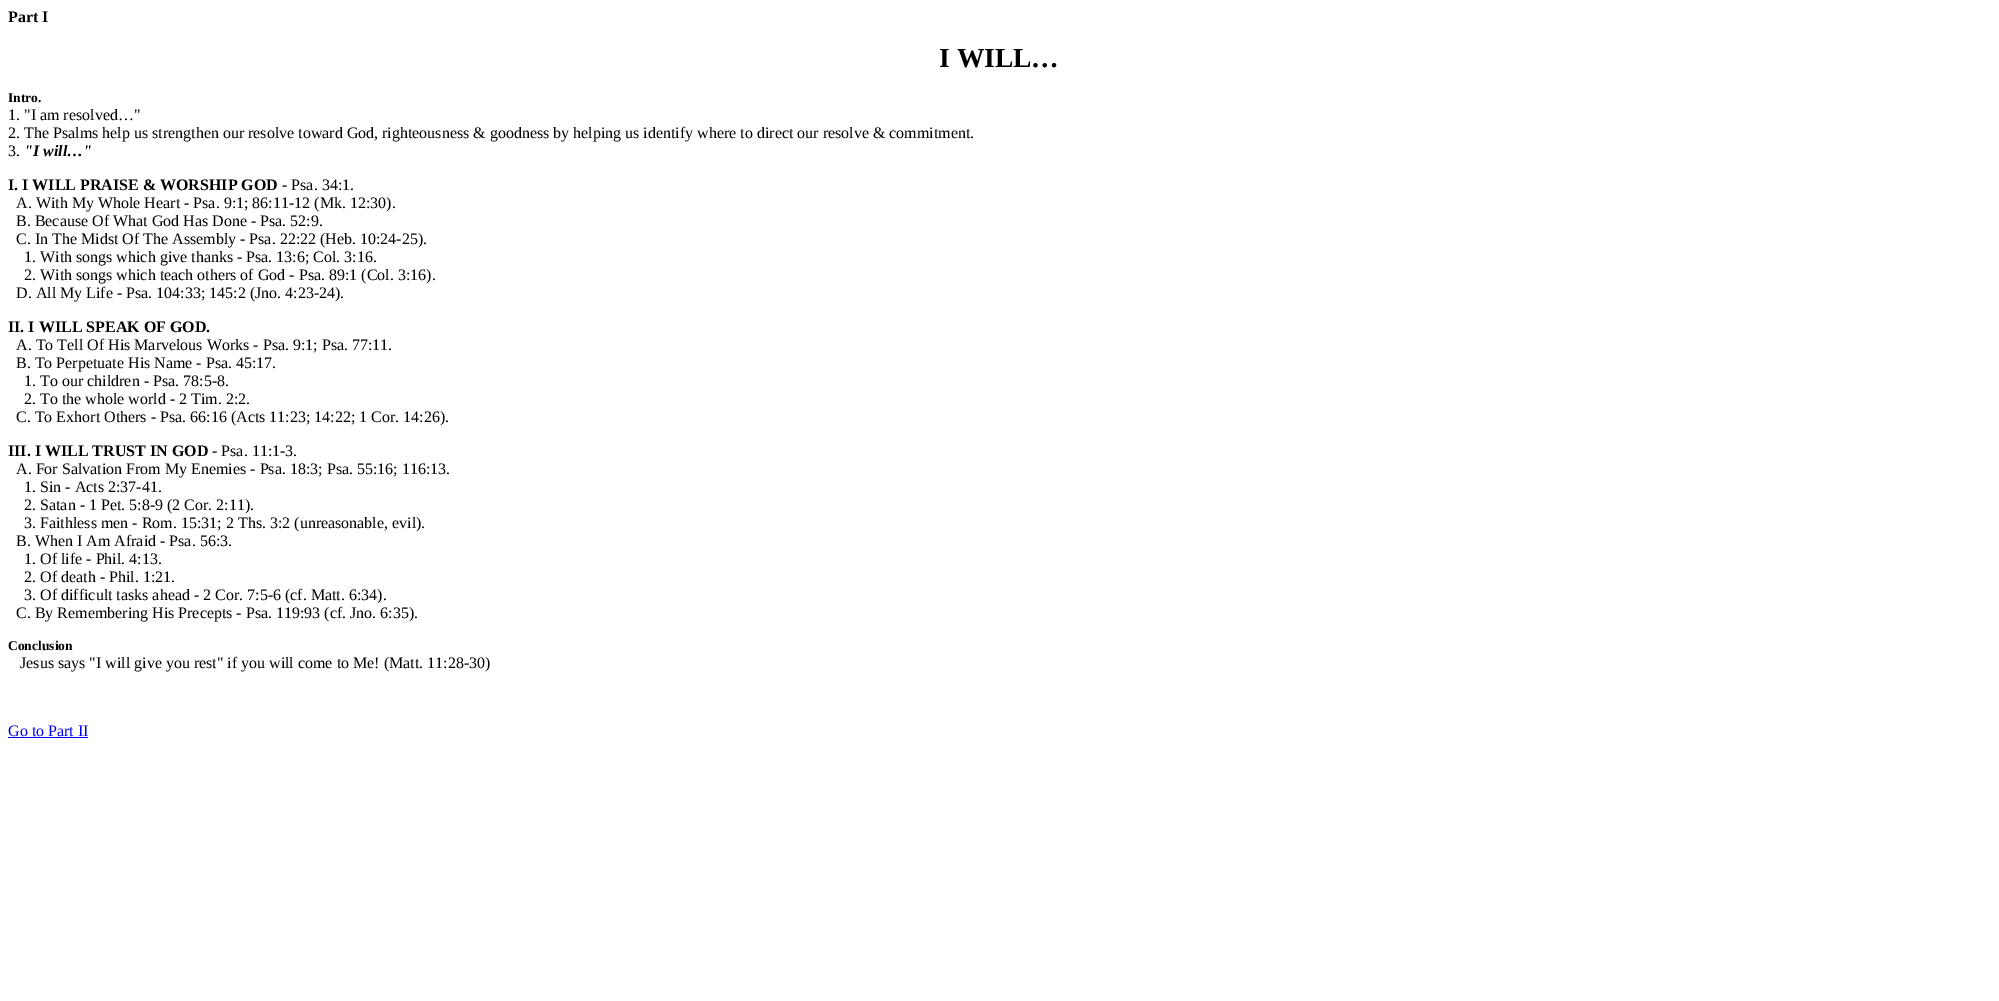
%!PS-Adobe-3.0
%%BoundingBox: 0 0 1999 1001
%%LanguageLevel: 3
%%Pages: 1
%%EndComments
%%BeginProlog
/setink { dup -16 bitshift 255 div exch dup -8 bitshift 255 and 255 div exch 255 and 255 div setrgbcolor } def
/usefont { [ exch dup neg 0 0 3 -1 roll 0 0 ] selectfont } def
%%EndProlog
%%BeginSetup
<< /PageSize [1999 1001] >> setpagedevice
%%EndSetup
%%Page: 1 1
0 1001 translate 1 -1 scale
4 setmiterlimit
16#FFFFFF setink
0 0 1999 1001 rectfill
/LiberationSerif-Bold 16 usefont
16#000000 setink
8 22 moveto (Part I) show
/LiberationSerif-Bold 27.5 usefont
939 67 moveto (I WILL…) show
/LiberationSerif-Bold 13.5 usefont
8 102 moveto (Intro.) show
/LiberationSerif-Regular 16 usefont
[
    [(1. "I am resolved…") 8 120]
    [(2. The Psalms help us strengthen our resolve toward God, righteousness & goodness by helping us identify where to direct our resolve & commitment.) 8 138]
    [(3.) 8 156]
] { aload pop moveto show } forall
/LiberationSerif-BoldItalic 16 usefont
24 156 moveto ("I will…") show
/LiberationSerif-Bold 16 usefont
8 190 moveto (I. I WILL PRAISE & WORSHIP GOD) show
/LiberationSerif-Regular 16 usefont
[
    [(- Psa. 34:1.) 282 190]
    [(A. With My Whole Heart - Psa. 9:1; 86:11-12 \(Mk. 12:30\).) 16 208]
    [(B. Because Of What God Has Done - Psa. 52:9.) 16 226]
    [(C. In The Midst Of The Assembly - Psa. 22:22 \(Heb. 10:24-25\).) 16 244]
    [(1. With songs which give thanks - Psa. 13:6; Col. 3:16.) 24 262]
    [(2. With songs which teach others of God - Psa. 89:1 \(Col. 3:16\).) 24 280]
    [(D. All My Life - Psa. 104:33; 145:2 \(Jno. 4:23-24\).) 16 298]
] { aload pop moveto show } forall
/LiberationSerif-Bold 16 usefont
8 332 moveto (II. I WILL SPEAK OF GOD.) show
/LiberationSerif-Regular 16 usefont
[
    [(A. To Tell Of His Marvelous Works - Psa. 9:1; Psa. 77:11.) 16 350]
    [(B. To Perpetuate His Name - Psa. 45:17.) 16 368]
    [(1. To our children - Psa. 78:5-8.) 24 386]
    [(2. To the whole world - 2 Tim. 2:2.) 24 404]
    [(C. To Exhort Others - Psa. 66:16 \(Acts 11:23; 14:22; 1 Cor. 14:26\).) 16 422]
] { aload pop moveto show } forall
/LiberationSerif-Bold 16 usefont
8 456 moveto (III. I WILL TRUST IN GOD) show
/LiberationSerif-Regular 16 usefont
[
    [(- Psa. 11:1-3.) 212 456]
    [(A. For Salvation From My Enemies - Psa. 18:3; Psa. 55:16; 116:13.) 16 474]
    [(1. Sin - Acts 2:37-41.) 24 492]
    [(2. Satan - 1 Pet. 5:8-9 \(2 Cor. 2:11\).) 24 510]
    [(3. Faithless men - Rom. 15:31; 2 Ths. 3:2 \(unreasonable, evil\).) 24 528]
    [(B. When I Am Afraid - Psa. 56:3.) 16 546]
    [(1. Of life - Phil. 4:13.) 24 564]
    [(2. Of death - Phil. 1:21.) 24 582]
    [(3. Of difficult tasks ahead - 2 Cor. 7:5-6 \(cf. Matt. 6:34\).) 24 600]
    [(C. By Remembering His Precepts - Psa. 119:93 \(cf. Jno. 6:35\).) 16 618]
] { aload pop moveto show } forall
/LiberationSerif-Bold 13.5 usefont
8 650 moveto (Conclusion) show
/LiberationSerif-Regular 16 usefont
20 668 moveto (Jesus says "I will give you rest" if you will come to Me! \(Matt. 11:28-30\)) show
16#0000EE setink
8 736 moveto (Go to Part II) show
8 737 80 1 rectfill
showpage
%%EOF
